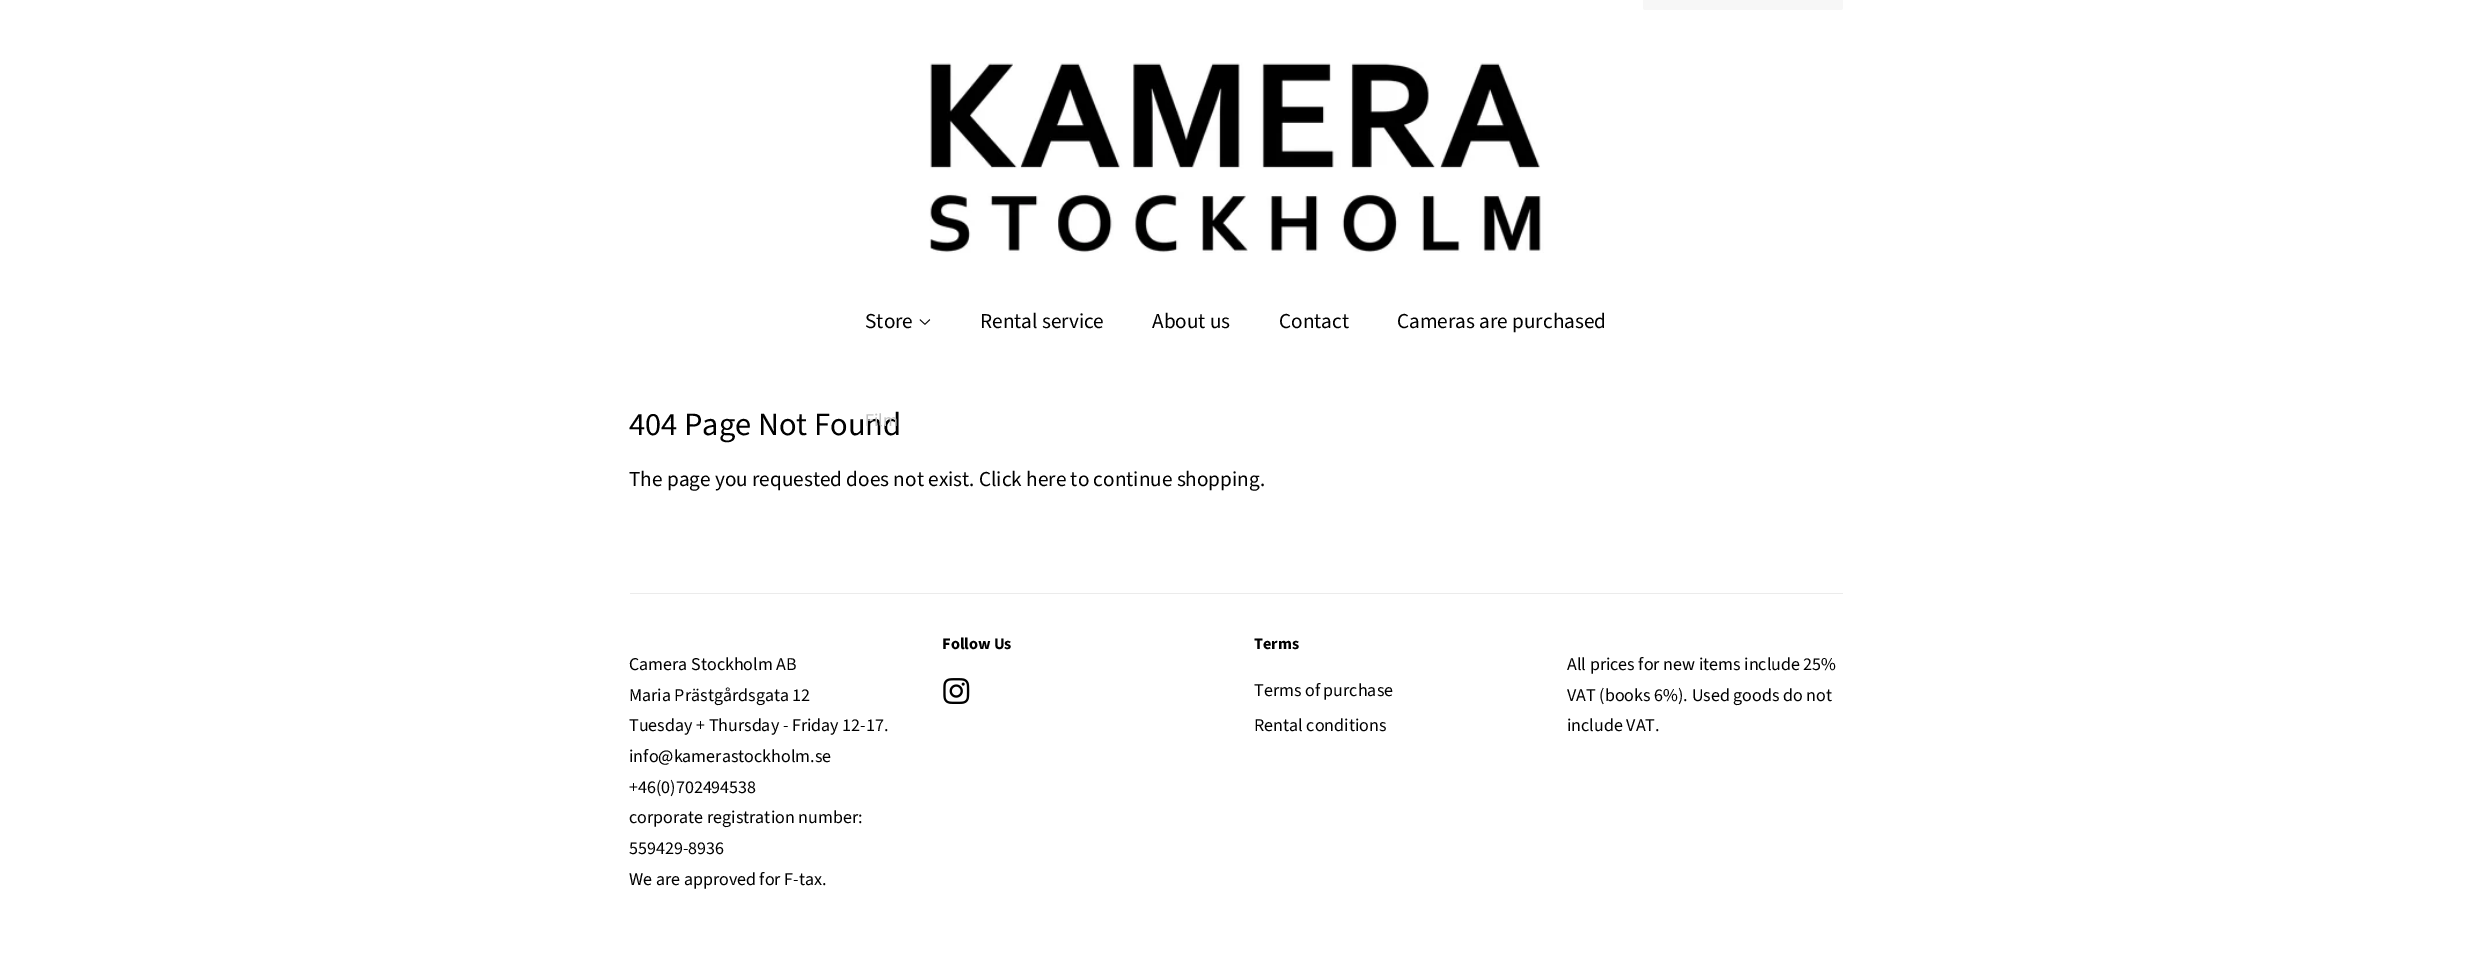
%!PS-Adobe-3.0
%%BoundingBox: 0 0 2471 963
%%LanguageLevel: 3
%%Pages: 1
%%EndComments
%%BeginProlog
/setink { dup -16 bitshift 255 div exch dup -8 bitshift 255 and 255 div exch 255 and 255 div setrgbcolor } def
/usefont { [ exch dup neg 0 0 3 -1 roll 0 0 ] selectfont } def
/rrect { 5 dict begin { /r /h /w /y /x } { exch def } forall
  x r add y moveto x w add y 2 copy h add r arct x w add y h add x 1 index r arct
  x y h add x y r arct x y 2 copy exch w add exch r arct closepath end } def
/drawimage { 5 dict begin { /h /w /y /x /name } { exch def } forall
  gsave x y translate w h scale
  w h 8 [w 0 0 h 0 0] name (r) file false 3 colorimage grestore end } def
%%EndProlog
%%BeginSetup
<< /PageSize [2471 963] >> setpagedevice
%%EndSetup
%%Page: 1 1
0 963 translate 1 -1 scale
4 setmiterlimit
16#FFFFFF setink
0 0 2471 963 rectfill
16#F7F7F7 setink
1643 -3 200 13 2.5 rrect fill
(img1.raw) 929 62 615 191 drawimage
/SourceSansPro-Regular 21.25 usefont
16#000000 setink
865 328 moveto (Store) show
(img2.raw) 919 319 12 6 drawimage
/SourceSansPro-Regular 32.5 usefont
629 435 moveto (404 Page Not Found) show
/SourceSansPro-Regular 18 usefont
16#C1C1C1 setink
865 426 moveto (Film) show
/SourceSansPro-Regular 21.25 usefont
16#000000 setink
[
    [(Rental service) 980 328]
    [(About us) 1152 328]
    [(Contact) 1279 328]
    [(Cameras are purchased) 1397 328]
    [(The page you requested does not exist. Click here to continue shopping.) 629 486]
] { aload pop moveto show } forall
16#EBEBEB setink
630 593 1213 1 rectfill
/SourceSansPro-Regular 18 usefont
16#000000 setink
[
    [(Camera Stockholm AB) 629 670]
    [(Maria Prästgårdsgata 12) 629 701]
    [(Tuesday + Thursday - Friday 12-17.) 629 731]
    [(info@kamerastockholm.se) 629 762]
    [(+46\(0\)702494538) 629 793]
    [(corporate registration number:) 629 823]
    [(559429-8936) 629 854]
    [(We are approved for F-tax.) 629 885]
] { aload pop moveto show } forall
/SourceSansPro-Bold 16.25 usefont
942 649 moveto (Follow Us) show
(img3.raw) 943 678 27 26 drawimage
1254 649 moveto (Terms) show
/SourceSansPro-Regular 18 usefont
[
    [(Terms of purchase) 1254 696]
    [(Rental conditions) 1254 731]
    [(All prices for new items include 25%) 1567 670]
    [(VAT \(books 6%\). Used goods do not) 1567 701]
    [(include VAT.) 1567 731]
] { aload pop moveto show } forall
showpage
%%EOF
